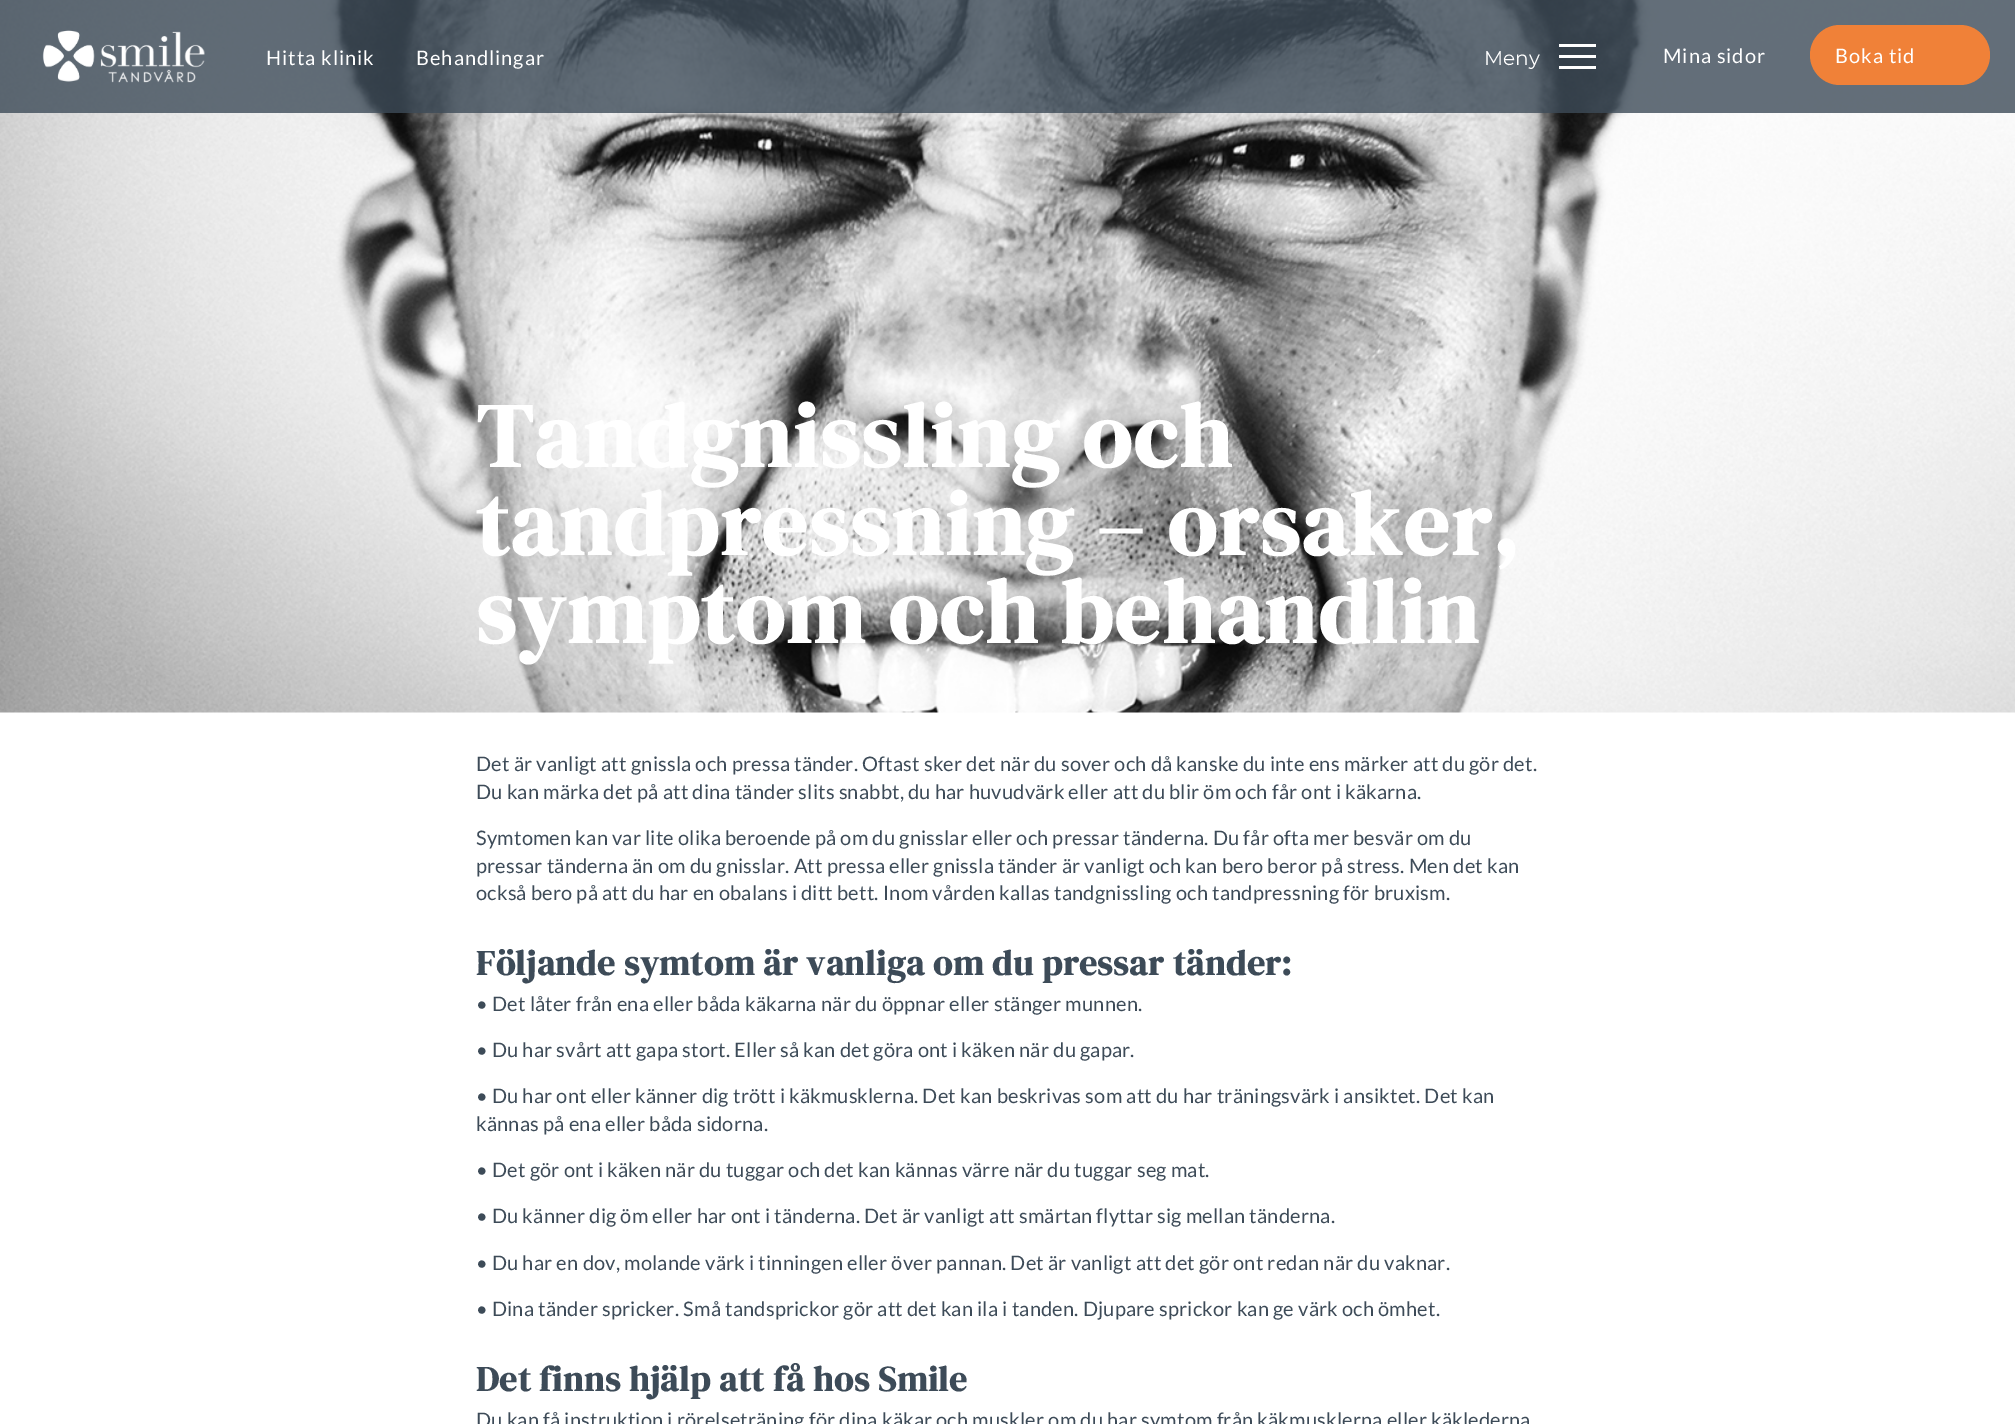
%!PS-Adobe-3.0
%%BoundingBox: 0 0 2015 1424
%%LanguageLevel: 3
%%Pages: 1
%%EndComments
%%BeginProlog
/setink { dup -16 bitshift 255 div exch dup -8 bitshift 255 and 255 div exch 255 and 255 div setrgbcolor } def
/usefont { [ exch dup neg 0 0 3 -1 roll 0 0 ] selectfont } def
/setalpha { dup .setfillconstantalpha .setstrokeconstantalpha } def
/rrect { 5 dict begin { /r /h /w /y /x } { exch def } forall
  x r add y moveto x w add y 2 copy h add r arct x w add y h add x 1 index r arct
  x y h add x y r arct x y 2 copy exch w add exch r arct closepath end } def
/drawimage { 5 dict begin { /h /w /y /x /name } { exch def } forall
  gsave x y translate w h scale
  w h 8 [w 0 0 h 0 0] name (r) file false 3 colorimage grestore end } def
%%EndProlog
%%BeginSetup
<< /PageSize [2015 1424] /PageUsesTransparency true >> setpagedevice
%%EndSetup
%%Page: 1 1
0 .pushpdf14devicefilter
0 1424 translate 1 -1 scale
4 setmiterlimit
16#FFFFFF setink
0 0 2015 1424 rectfill
(img2.raw) 0 0 2015 713 drawimage
0.8 setalpha
16#3D4B58 setink
0 0 2015 113 rectfill
1 setalpha
(img1.raw) 42 30 163 53 drawimage
/Lato-Regular 20 usefont
16#FFFFFF setink
266 65 moveto 1 0 (Hitta klinik) ashow
416 65 moveto 1 0 (Behandlingar) ashow
1663 63 moveto 1 0 (Mina sidor) ashow
16#F08138 setink
1810 25 180 60 30 rrect fill
16#FFFFFF setink
1835 63 moveto 1 0 (Boka tid) ashow
/Montserrat-Regular 20 usefont
1484 65 moveto (Meny) show
[
    [1559 44 37 3 16#FFFFFF]
    [1559 55 37 3 16#FFFFFF]
    [1559 66 37 3 16#FFFFFF]
] { aload pop setink rectfill } forall
/DMSerifDisplay-Bold 90 usefont
476 467 moveto 1.8 0 (Tandgnissling och) ashow
476 555 moveto 1.8 0 (tandpressning – orsaker,) ashow
476 643 moveto 1.8 0 (symptom och behandlin) ashow
/Lato-Regular 20 usefont
16#3D4B58 setink
476 771 moveto 0.2 0 (Det är vanligt att gnissla och pressa tänder. Oftast sker det när du sover och då kanske du inte ens märker att du gör det.) ashow
476 799 moveto 0.2 0 (Du kan märka det på att dina tänder slits snabbt, du har huvudvärk eller att du blir öm och får ont i käkarna.) ashow
476 845 moveto 0.2 0 (Symtomen kan var lite olika beroende på om du gnisslar eller och pressar tänderna. Du får ofta mer besvär om du) ashow
476 873 moveto 0.2 0 (pressar tänderna än om du gnisslar. Att pressa eller gnissla tänder är vanligt och kan bero beror på stress. Men det kan) ashow
476 900 moveto 0.2 0 (också bero på att du har en obalans i ditt bett. Inom vården kallas tandgnissling och tandpressning för bruxism.) ashow
/DMSerifDisplay-Bold 35 usefont
476 975 moveto 0.7 0 (Följande symtom är vanliga om du pressar tänder:) ashow
/Lato-Regular 20 usefont
476 1011 moveto 0.2 0 (• Det låter från ena eller båda käkarna när du öppnar eller stänger munnen.) ashow
476 1057 moveto 0.2 0 (• Du har svårt att gapa stort. Eller så kan det göra ont i käken när du gapar.) ashow
476 1103 moveto 0.2 0 (• Du har ont eller känner dig trött i käkmusklerna. Det kan beskrivas som att du har träningsvärk i ansiktet. Det kan) ashow
476 1131 moveto 0.2 0 (kännas på ena eller båda sidorna.) ashow
476 1177 moveto 0.2 0 (• Det gör ont i käken när du tuggar och det kan kännas värre när du tuggar seg mat.) ashow
476 1223 moveto 0.2 0 (• Du känner dig öm eller har ont i tänderna. Det är vanligt att smärtan flyttar sig mellan tänderna.) ashow
476 1270 moveto 0.2 0 (• Du har en dov, molande värk i tinningen eller över pannan. Det är vanligt att det gör ont redan när du vaknar.) ashow
476 1316 moveto 0.2 0 (• Dina tänder spricker. Små tandsprickor gör att det kan ila i tanden. Djupare sprickor kan ge värk och ömhet.) ashow
/DMSerifDisplay-Bold 35 usefont
476 1391 moveto 0.7 0 (Det finns hjälp att få hos Smile) ashow
/Lato-Regular 20 usefont
476 1427 moveto 0.2 0 (Du kan få instruktion i rörelseträning för dina käkar och muskler om du har symtom från käkmusklerna eller käklederna) ashow
.poppdf14devicefilter showpage
%%EOF
